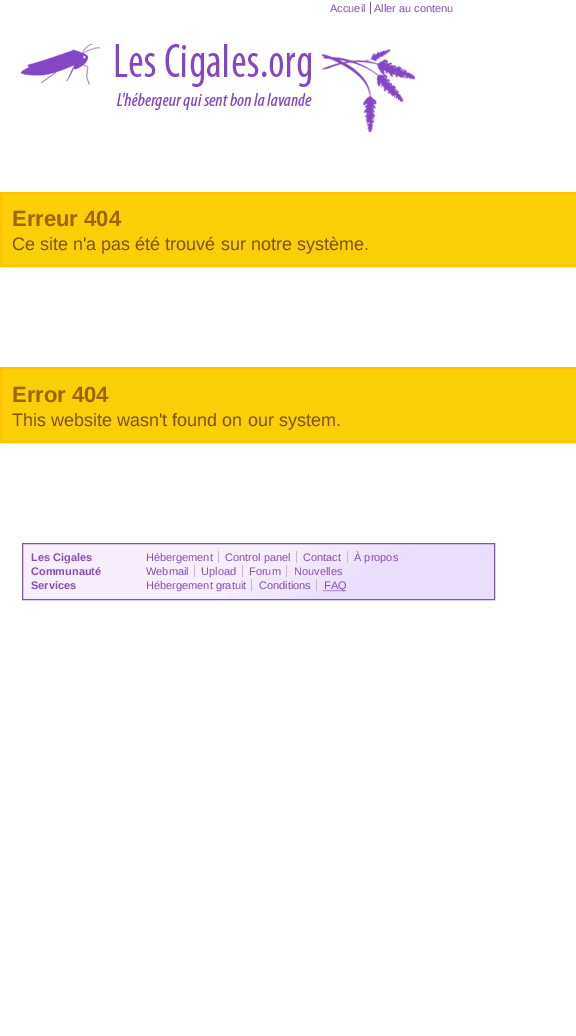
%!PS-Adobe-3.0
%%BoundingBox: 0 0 576 1036
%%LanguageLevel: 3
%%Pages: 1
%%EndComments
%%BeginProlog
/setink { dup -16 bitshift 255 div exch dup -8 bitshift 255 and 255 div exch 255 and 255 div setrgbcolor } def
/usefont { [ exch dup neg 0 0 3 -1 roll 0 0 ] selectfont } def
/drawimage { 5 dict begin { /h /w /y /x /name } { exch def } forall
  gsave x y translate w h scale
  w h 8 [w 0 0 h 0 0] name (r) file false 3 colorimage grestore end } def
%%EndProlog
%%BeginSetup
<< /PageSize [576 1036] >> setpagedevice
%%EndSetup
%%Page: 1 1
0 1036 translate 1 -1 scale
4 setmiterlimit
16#FFFFFF setink
0 0 576 1036 rectfill
/LiberationSans-Regular 11 usefont
16#8650B3 setink
330 12 moveto (Accueil) show
370 2 1 12 rectfill
374 12 moveto (Aller au contenu) show
(img1.raw) 21 44 395 89 drawimage
16#FACF06 setink
1 193 moveto 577 193 lineto 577 266 lineto 1 266 lineto closepath gsave fill grestore
16#FFC000 setink
2 setlinewidth
stroke
/LiberationSans-Bold 22 usefont
16#9D640A setink
12 226 moveto (Erreur 404) show
/LiberationSans-Regular 18 usefont
16#7B510E setink
12 250 moveto (Ce site n'a pas été trouvé sur notre système.) show
16#FACF06 setink
1 368 moveto 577 368 lineto 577 442 lineto 1 442 lineto closepath gsave fill grestore
16#FFC000 setink
stroke
/LiberationSans-Bold 22 usefont
16#9D640A setink
12 402 moveto (Error 404) show
/LiberationSans-Regular 18 usefont
16#7B510E setink
12 426 moveto (This website wasn't found on our system.) show
16#F7EFFD setink
23 544 204 55 rectfill
(img2.raw) 227 544 267 55 drawimage
16#8650B3 setink
1 setlinewidth
22.5 543.5 472 56 rectstroke
/LiberationSans-Bold 11 usefont
31 561 moveto (Les Cigales) show
/LiberationSans-Regular 11 usefont
146 561 moveto (Hébergement) show
16#CAB3DE setink
218 551 1 12 rectfill
16#8650B3 setink
225 561 moveto (Control panel) show
16#CAB3DE setink
296 551 1 12 rectfill
16#8650B3 setink
303 561 moveto (Contact) show
16#CAB3DE setink
347 551 1 12 rectfill
16#8650B3 setink
354 561 moveto (À propos) show
/LiberationSans-Bold 11 usefont
31 575 moveto (Communauté) show
/LiberationSans-Regular 11 usefont
146 575 moveto (Webmail) show
16#CAB3DE setink
194 565 1 12 rectfill
16#8650B3 setink
201 575 moveto (Upload) show
16#CAB3DE setink
242 565 1 12 rectfill
16#8650B3 setink
249 575 moveto (Forum) show
16#CAB3DE setink
286 565 1 12 rectfill
16#8650B3 setink
294 575 moveto (Nouvelles) show
/LiberationSans-Bold 11 usefont
31 589 moveto (Services) show
/LiberationSans-Regular 11 usefont
146 589 moveto (Hébergement gratuit) show
16#CAB3DE setink
251 579 1 12 rectfill
16#8650B3 setink
259 589 moveto (Conditions) show
16#CAB3DE setink
316 579 1 12 rectfill
16#8650B3 setink
[1 1] 0 setdash
323.5 590.5 moveto 346 590.5 lineto stroke
324 589 moveto (FAQ) show
showpage
%%EOF
